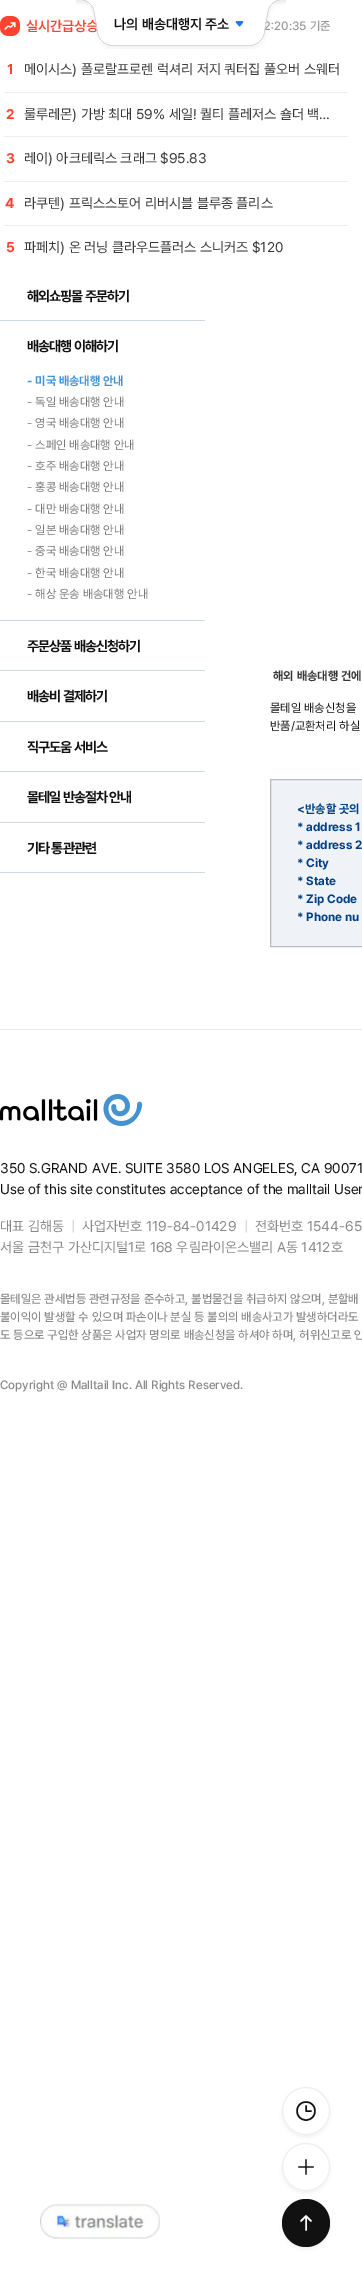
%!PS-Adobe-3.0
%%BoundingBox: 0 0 362 2279
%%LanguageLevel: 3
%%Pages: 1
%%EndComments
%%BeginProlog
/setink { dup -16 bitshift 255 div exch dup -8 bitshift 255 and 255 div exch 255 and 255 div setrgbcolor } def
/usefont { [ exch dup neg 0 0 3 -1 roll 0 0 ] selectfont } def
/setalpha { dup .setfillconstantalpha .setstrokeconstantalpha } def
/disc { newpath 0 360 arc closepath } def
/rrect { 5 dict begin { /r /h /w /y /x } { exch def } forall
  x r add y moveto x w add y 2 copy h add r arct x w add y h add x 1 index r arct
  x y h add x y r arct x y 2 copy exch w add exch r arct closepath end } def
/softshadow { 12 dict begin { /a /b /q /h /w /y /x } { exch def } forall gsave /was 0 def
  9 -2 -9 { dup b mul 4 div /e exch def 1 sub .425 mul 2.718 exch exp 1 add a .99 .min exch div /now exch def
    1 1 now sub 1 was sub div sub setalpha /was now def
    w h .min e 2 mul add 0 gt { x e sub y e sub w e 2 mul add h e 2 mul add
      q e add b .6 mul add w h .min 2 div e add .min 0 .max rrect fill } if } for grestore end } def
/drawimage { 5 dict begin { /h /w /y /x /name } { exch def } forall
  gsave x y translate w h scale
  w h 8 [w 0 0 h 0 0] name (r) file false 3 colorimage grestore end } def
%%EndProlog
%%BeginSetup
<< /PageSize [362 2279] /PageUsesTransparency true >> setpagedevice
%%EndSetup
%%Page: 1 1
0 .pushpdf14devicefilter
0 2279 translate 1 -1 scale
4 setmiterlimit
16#FFFFFF setink
0 0 362 2279 rectfill
/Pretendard-SemiBold 14 usefont
16#FF4330 setink
26 31 moveto (실시간급상승) show
/Pretendard-Medium 12 usefont
16#999999 setink
264 30 moveto (2:20:35 기준) show
(img1.raw) 76 0 210 49 drawimage
/Pretendard-SemiBold 14 usefont
16#111111 setink
114 29 moveto (나의 배송대행지 주소) show
(img2.raw) 235 21 9 6 drawimage
(img3.raw) 0 16 20 20 drawimage
16#EEEEEE setink
4 92 344 1 rectfill
/Pretendard-Bold 14 usefont
16#FF4330 setink
7 74 moveto (1) show
/Pretendard-Regular 14 usefont
16#373737 setink
24 74 moveto (메이시스\) 폴로랄프로렌 럭셔리 저지 쿼터집 풀오버 스웨터) show
16#EEEEEE setink
4 136 344 1 rectfill
/Pretendard-Bold 14 usefont
16#FF4330 setink
6 119 moveto (2) show
/Pretendard-Regular 14 usefont
16#373737 setink
24 119 moveto (룰루레몬\) 가방 최대 59% 세일! 퀄티 플레저스 숄더 백…) show
16#EEEEEE setink
4 181 344 1 rectfill
/Pretendard-Bold 14 usefont
16#FF4330 setink
6 163 moveto (3) show
/Pretendard-Regular 14 usefont
16#373737 setink
24 163 moveto (레이\) 아크테릭스 크래그 $95.83) show
16#EEEEEE setink
4 225 344 1 rectfill
/Pretendard-Bold 14 usefont
16#FF4330 setink
5 208 moveto (4) show
/Pretendard-Regular 14 usefont
16#373737 setink
24 208 moveto (라쿠텐\) 프릭스스토어 리버시블 블루종 플리스) show
/Pretendard-Bold 14 usefont
16#FF4330 setink
6 252 moveto (5) show
/Pretendard-Regular 14 usefont
16#373737 setink
24 252 moveto (파페치\) 온 러닝 클라우드플러스 스니커즈 $120) show
16#000000 setink
282 2089 48 48 24 2 0.05 softshadow
16#FFFFFF setink
306 2111 24 disc fill
16#111111 setink
1.5 setlinewidth
1 setlinecap
1 setlinejoin
306 2106 moveto 306 2111 lineto 311 2111 lineto 306 2120 moveto 294 2120 294 2102 306 2102 curveto 318 2102 318 2120 306 2120 curveto closepath stroke
16#EEEEEE setink
1 setlinewidth
0 setlinecap
0 setlinejoin
306 2111 23.5 disc stroke
16#000000 setink
282 2145 48 48 24 2 0.05 softshadow
16#FFFFFF setink
306 2167 24 disc fill
(img4.raw) 298 2159 16 16 drawimage
16#EEEEEE setink
306 2167 23.5 disc stroke
16#000000 setink
282 2201 48 48 24 2 0.05 softshadow
16#111111 setink
306 2223 24 disc fill
16#FFFFFF setink
1.5 setlinewidth
1 setlinecap
1 setlinejoin
306 2216 moveto 306 2230 lineto 306 2216 moveto 301 2221 lineto 306 2216 moveto 311 2221 lineto stroke
16#CED9E1 setink
0 320 205 1 rectfill
/Pretendard-Bold 14 usefont
16#111111 setink
27 301 moveto -1 0 (해외쇼핑몰 주문하기) ashow
16#CED9E1 setink
0 620 205 1 rectfill
16#111111 setink
27 351 moveto -1 0 (배송대행 이해하기) ashow
/Pretendard-Bold 12 usefont
16#4293D6 setink
27 385 moveto (- 미국 배송대행 안내) show
/Pretendard-Regular 12 usefont
16#767676 setink
[
    [(- 독일 배송대행 안내) 27 406]
    [(- 영국 배송대행 안내) 27 427]
    [(- 스페인 배송대행 안내) 27 449]
    [(- 호주 배송대행 안내) 27 470]
    [(- 홍콩 배송대행 안내) 27 491]
    [(- 대만 배송대행 안내) 27 513]
    [(- 일본 배송대행 안내) 27 534]
    [(- 중국 배송대행 안내) 27 555]
    [(- 한국 배송대행 안내) 27 577]
    [(- 해상 운송 배송대행 안내) 27 598]
] { aload pop moveto show } forall
16#CED9E1 setink
0 670 205 1 rectfill
/Pretendard-Bold 14 usefont
16#111111 setink
27 651 moveto -1 0 (주문상품 배송신청하기) ashow
16#CED9E1 setink
0 721 205 1 rectfill
16#111111 setink
27 701 moveto -1 0 (배송비 결제하기) ashow
16#CED9E1 setink
0 771 205 1 rectfill
16#111111 setink
27 752 moveto -1 0 (직구도움 서비스) ashow
16#CED9E1 setink
0 822 205 1 rectfill
16#111111 setink
27 802 moveto -1 0 (몰테일 반송절차 안내) ashow
16#CED9E1 setink
0 872 205 1 rectfill
16#111111 setink
27 853 moveto -1 0 (기타 통관관련) ashow
/Pretendard-Bold 12 usefont
16#373737 setink
273 680 moveto (해외 배송대행 건에) show
/Pretendard-Regular 12 usefont
16#111111 setink
270 712 moveto (몰테일 배송신청을) show
270 730 moveto (반품/교환처리 하실) show
16#EFF3F8 setink
270.5 779.5 moveto 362.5 779.5 lineto 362.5 946.5 lineto 270.5 946.5 lineto closepath gsave fill grestore
16#BABABA setink
1 setlinewidth
0 setlinecap
0 setlinejoin
stroke
/Pretendard-Bold 12 usefont
16#003F85 setink
[
    [(<반송할 곳의) 297 813]
    [(* address 1) 297 831]
    [(* address 2) 297 849]
    [(* City) 297 867]
    [(* State) 297 885]
    [(* Zip Code) 297 903]
    [(* Phone nu) 297 921]
] { aload pop moveto show } forall
16#EAEAEA setink
0 1029 362 1 rectfill
(img5.raw) 0 1094 143 32 drawimage
/Pretendard-Regular 14 usefont
16#111111 setink
0 1173 moveto (350 S.GRAND AVE. SUITE 3580 LOS ANGELES, CA 90071) show
0 1194 moveto (Use of this site constitutes acceptance of the malltail User) show
16#888888 setink
0 1231 moveto (대표 김해동) show
16#CCCCCC setink
71 1231 moveto (|) show
16#888888 setink
82 1231 moveto (사업자번호 119-84-01429) show
16#CCCCCC setink
244 1231 moveto (|) show
16#888888 setink
255 1231 moveto (전화번호 1544-65) show
0 1252 moveto (서울 금천구 가산디지털1로 168 우림라이온스밸리 A동 1412호) show
/Pretendard-Medium 12 usefont
[
    [(몰테일은 관세법등 관련규정을 준수하고, 불법물건을 취급하지 않으며, 분할배) 0 1303]
    [(불이익이 발생할 수 있으며 파손이나 분실 등 불의의 배송사고가 발생하더라도) 0 1321]
    [(도 등으로 구입한 상품은 사업자 명의로 배송신청을 하셔야 하며, 허위신고로 인) 0 1339]
    [(Copyright @ Malltail Inc. All Rights Reserved.) 0 1389]
] { aload pop moveto show } forall
(img6.raw) 40 2204 120 35 drawimage
.poppdf14devicefilter showpage
%%EOF
